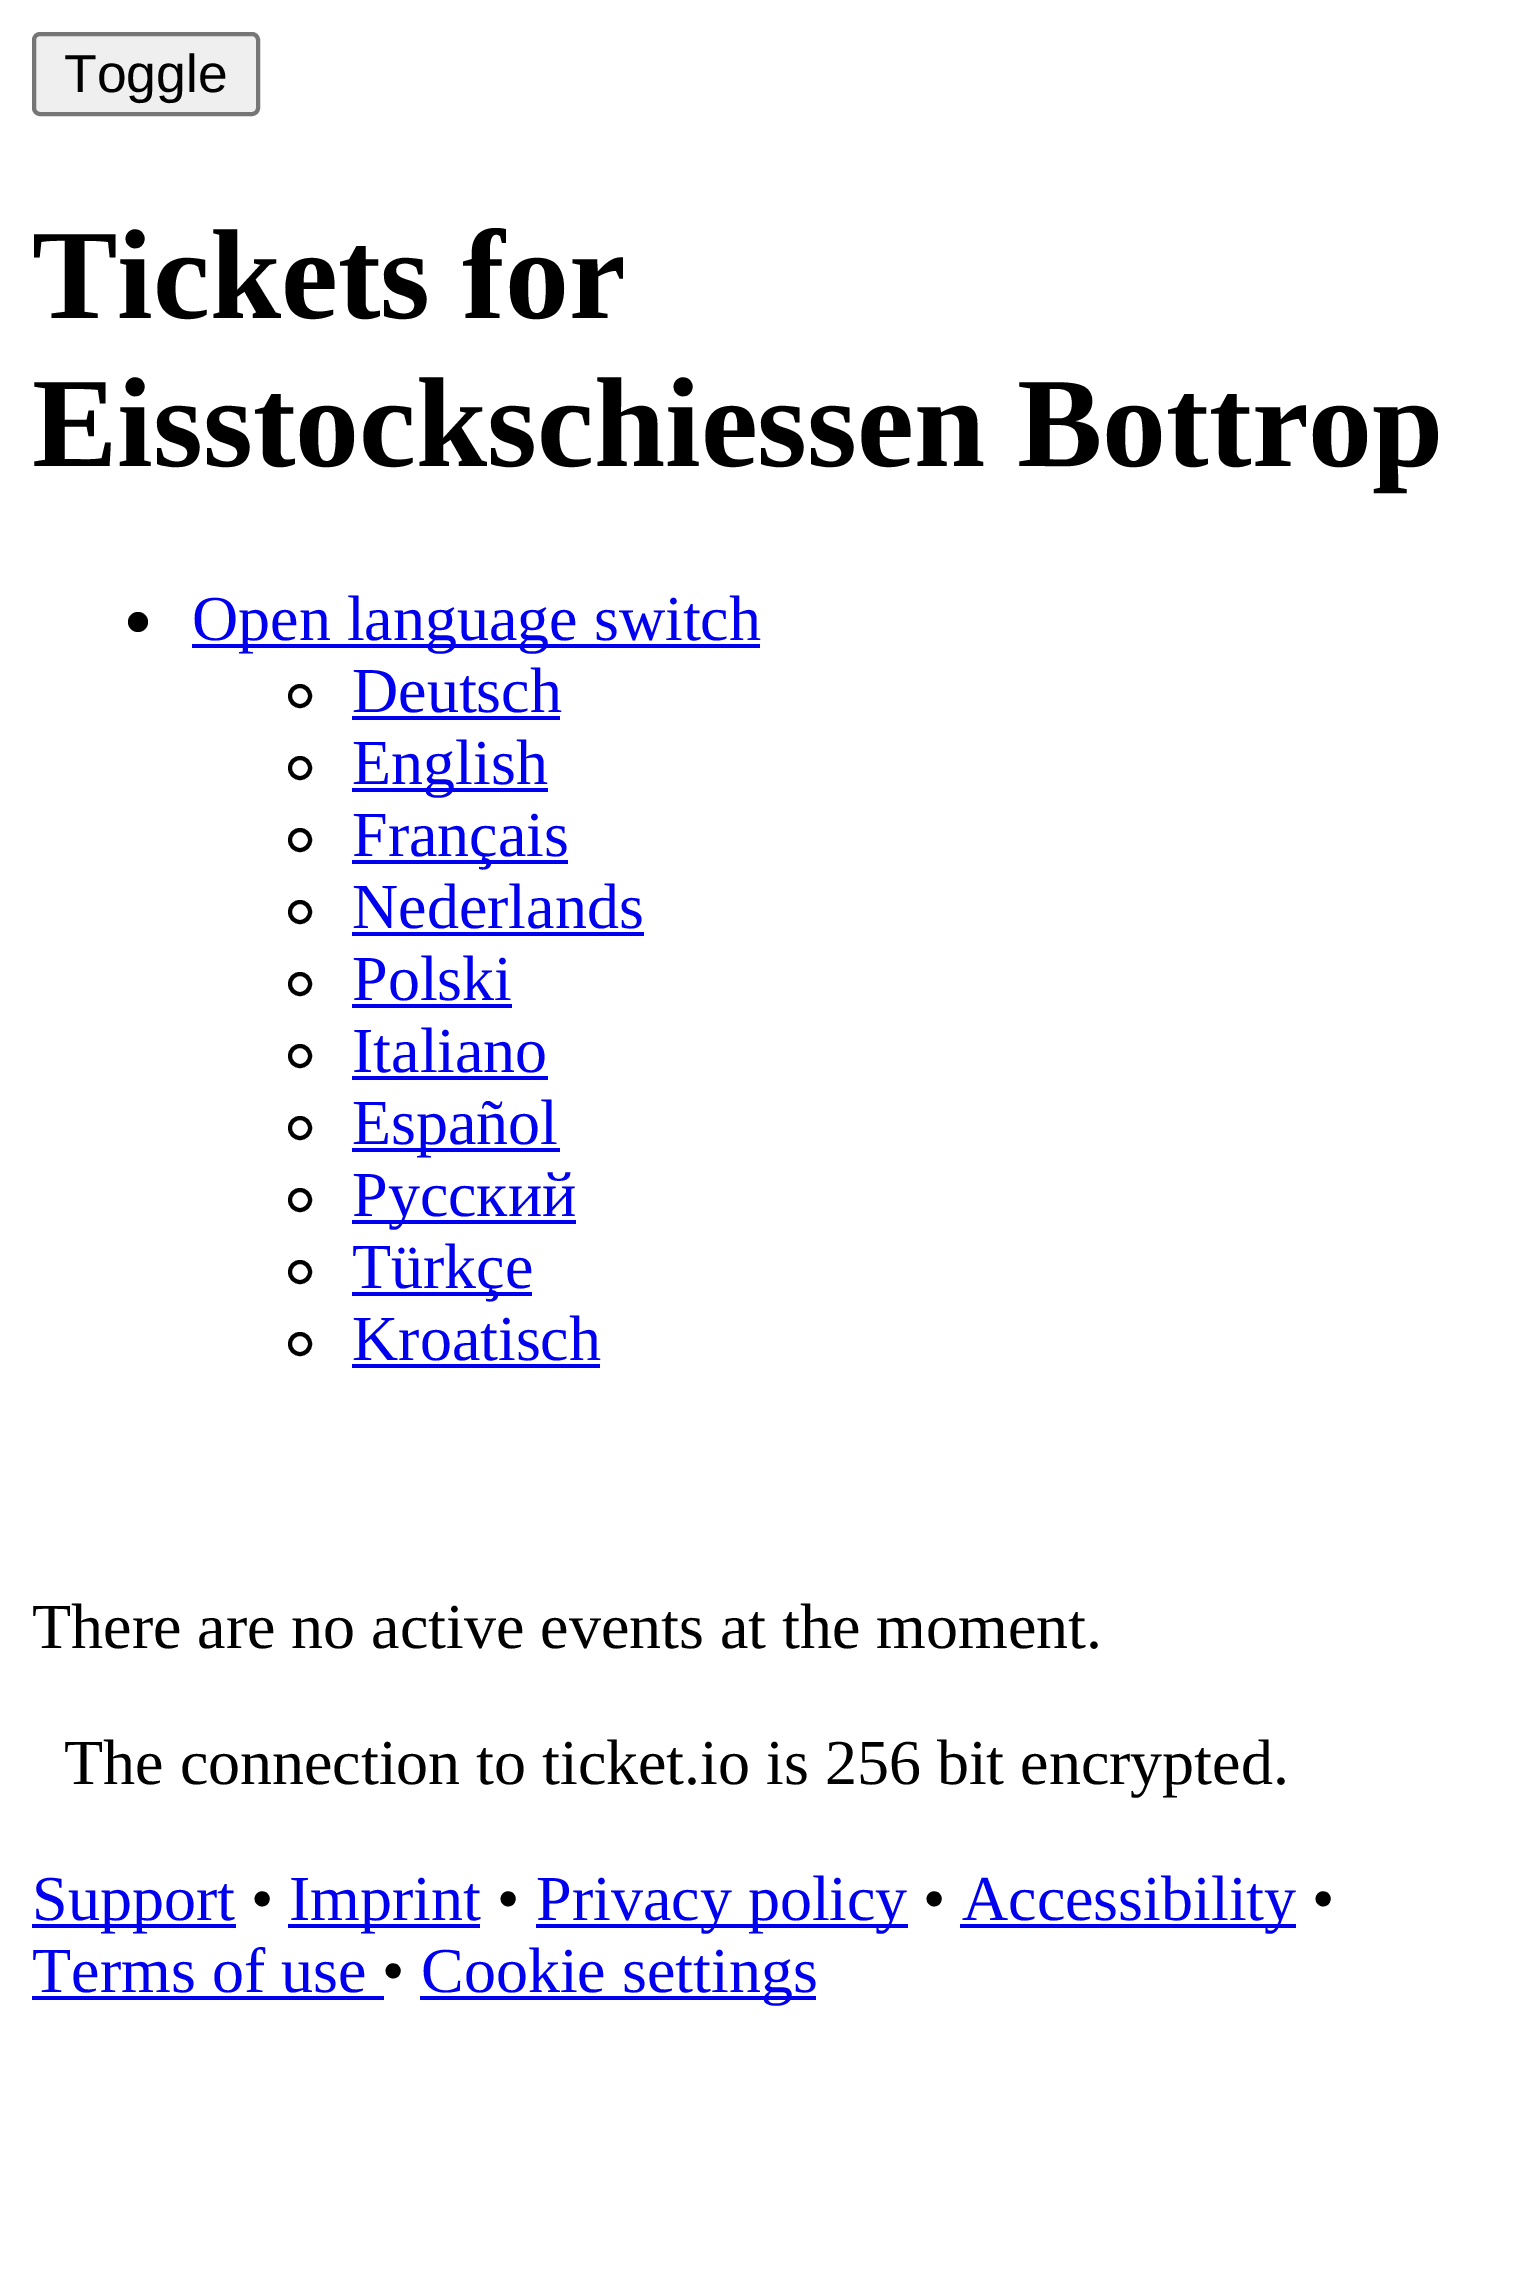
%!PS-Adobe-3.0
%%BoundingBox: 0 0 1529 2286
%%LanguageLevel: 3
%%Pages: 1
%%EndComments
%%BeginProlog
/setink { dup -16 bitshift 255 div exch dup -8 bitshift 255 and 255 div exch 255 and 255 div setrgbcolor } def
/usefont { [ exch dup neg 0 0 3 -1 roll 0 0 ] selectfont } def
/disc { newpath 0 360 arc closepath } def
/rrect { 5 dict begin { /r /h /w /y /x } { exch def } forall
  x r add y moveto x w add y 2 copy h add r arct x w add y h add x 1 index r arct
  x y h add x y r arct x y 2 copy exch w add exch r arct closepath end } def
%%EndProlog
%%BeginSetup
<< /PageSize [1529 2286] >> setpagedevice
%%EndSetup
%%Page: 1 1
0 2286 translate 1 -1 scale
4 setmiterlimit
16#FFFFFF setink
0 0 1529 2286 rectfill
16#EFEFEF setink
34 34 224 80 6 rrect gsave fill grestore
16#767676 setink
4 setlinewidth
stroke
/LiberationSans-Regular 53.5 usefont
16#000000 setink
64 92 moveto (Toggle) show
/LiberationSerif-Bold 128 usefont
32 318 moveto (Tickets for) show
32 466 moveto (Eisstockschiessen Bottrop) show
138 622 10 disc fill
16#0000EE setink
192 644 568 4 rectfill
/LiberationSerif-Regular 64 usefont
192 640 moveto (Open language switch) show
16#000000 setink
300 696 10 disc stroke
16#0000EE setink
352 712 moveto (Deutsch) show
352 716 208 4 rectfill
16#000000 setink
300 768 10 disc stroke
16#0000EE setink
352 788 196 4 rectfill
352 784 moveto (English) show
16#000000 setink
300 840 10 disc stroke
16#0000EE setink
352 860 216 4 rectfill
352 856 moveto (Français) show
16#000000 setink
300 912 10 disc stroke
16#0000EE setink
352 928 moveto (Nederlands) show
352 932 292 4 rectfill
16#000000 setink
300 984 10 disc stroke
16#0000EE setink
352 1000 moveto (Polski) show
352 1004 160 4 rectfill
16#000000 setink
300 1056 10 disc stroke
16#0000EE setink
352 1072 moveto (Italiano) show
352 1076 196 4 rectfill
16#000000 setink
300 1128 10 disc stroke
16#0000EE setink
352 1148 208 4 rectfill
352 1144 moveto (Español) show
16#000000 setink
300 1200 10 disc stroke
16#0000EE setink
352 1220 224 4 rectfill
352 1216 moveto (Русский) show
16#000000 setink
300 1272 10 disc stroke
16#0000EE setink
352 1292 180 4 rectfill
352 1288 moveto (Türkçe) show
16#000000 setink
300 1344 10 disc stroke
16#0000EE setink
352 1360 moveto (Kroatisch) show
352 1364 248 4 rectfill
16#000000 setink
32 1648 moveto (There are no active events at the moment.) show
64 1784 moveto (The connection to ticket.io is 256 bit encrypted.) show
16#0000EE setink
32 1924 204 4 rectfill
32 1920 moveto (Support) show
16#000000 setink
251 1920 moveto (•) show
16#0000EE setink
288 1924 192 4 rectfill
289 1920 moveto (Imprint) show
16#000000 setink
497 1920 moveto (•) show
16#0000EE setink
536 1924 372 4 rectfill
536 1920 moveto (Privacy policy) show
16#000000 setink
923 1920 moveto (•) show
16#0000EE setink
960 1924 336 4 rectfill
962 1920 moveto (Accessibility) show
16#000000 setink
1312 1920 moveto (•) show
16#0000EE setink
32 1992 moveto (Terms of use) show
32 1996 352 4 rectfill
16#000000 setink
382 1992 moveto (•) show
16#0000EE setink
420 1996 396 4 rectfill
421 1992 moveto (Cookie settings) show
showpage
%%EOF
